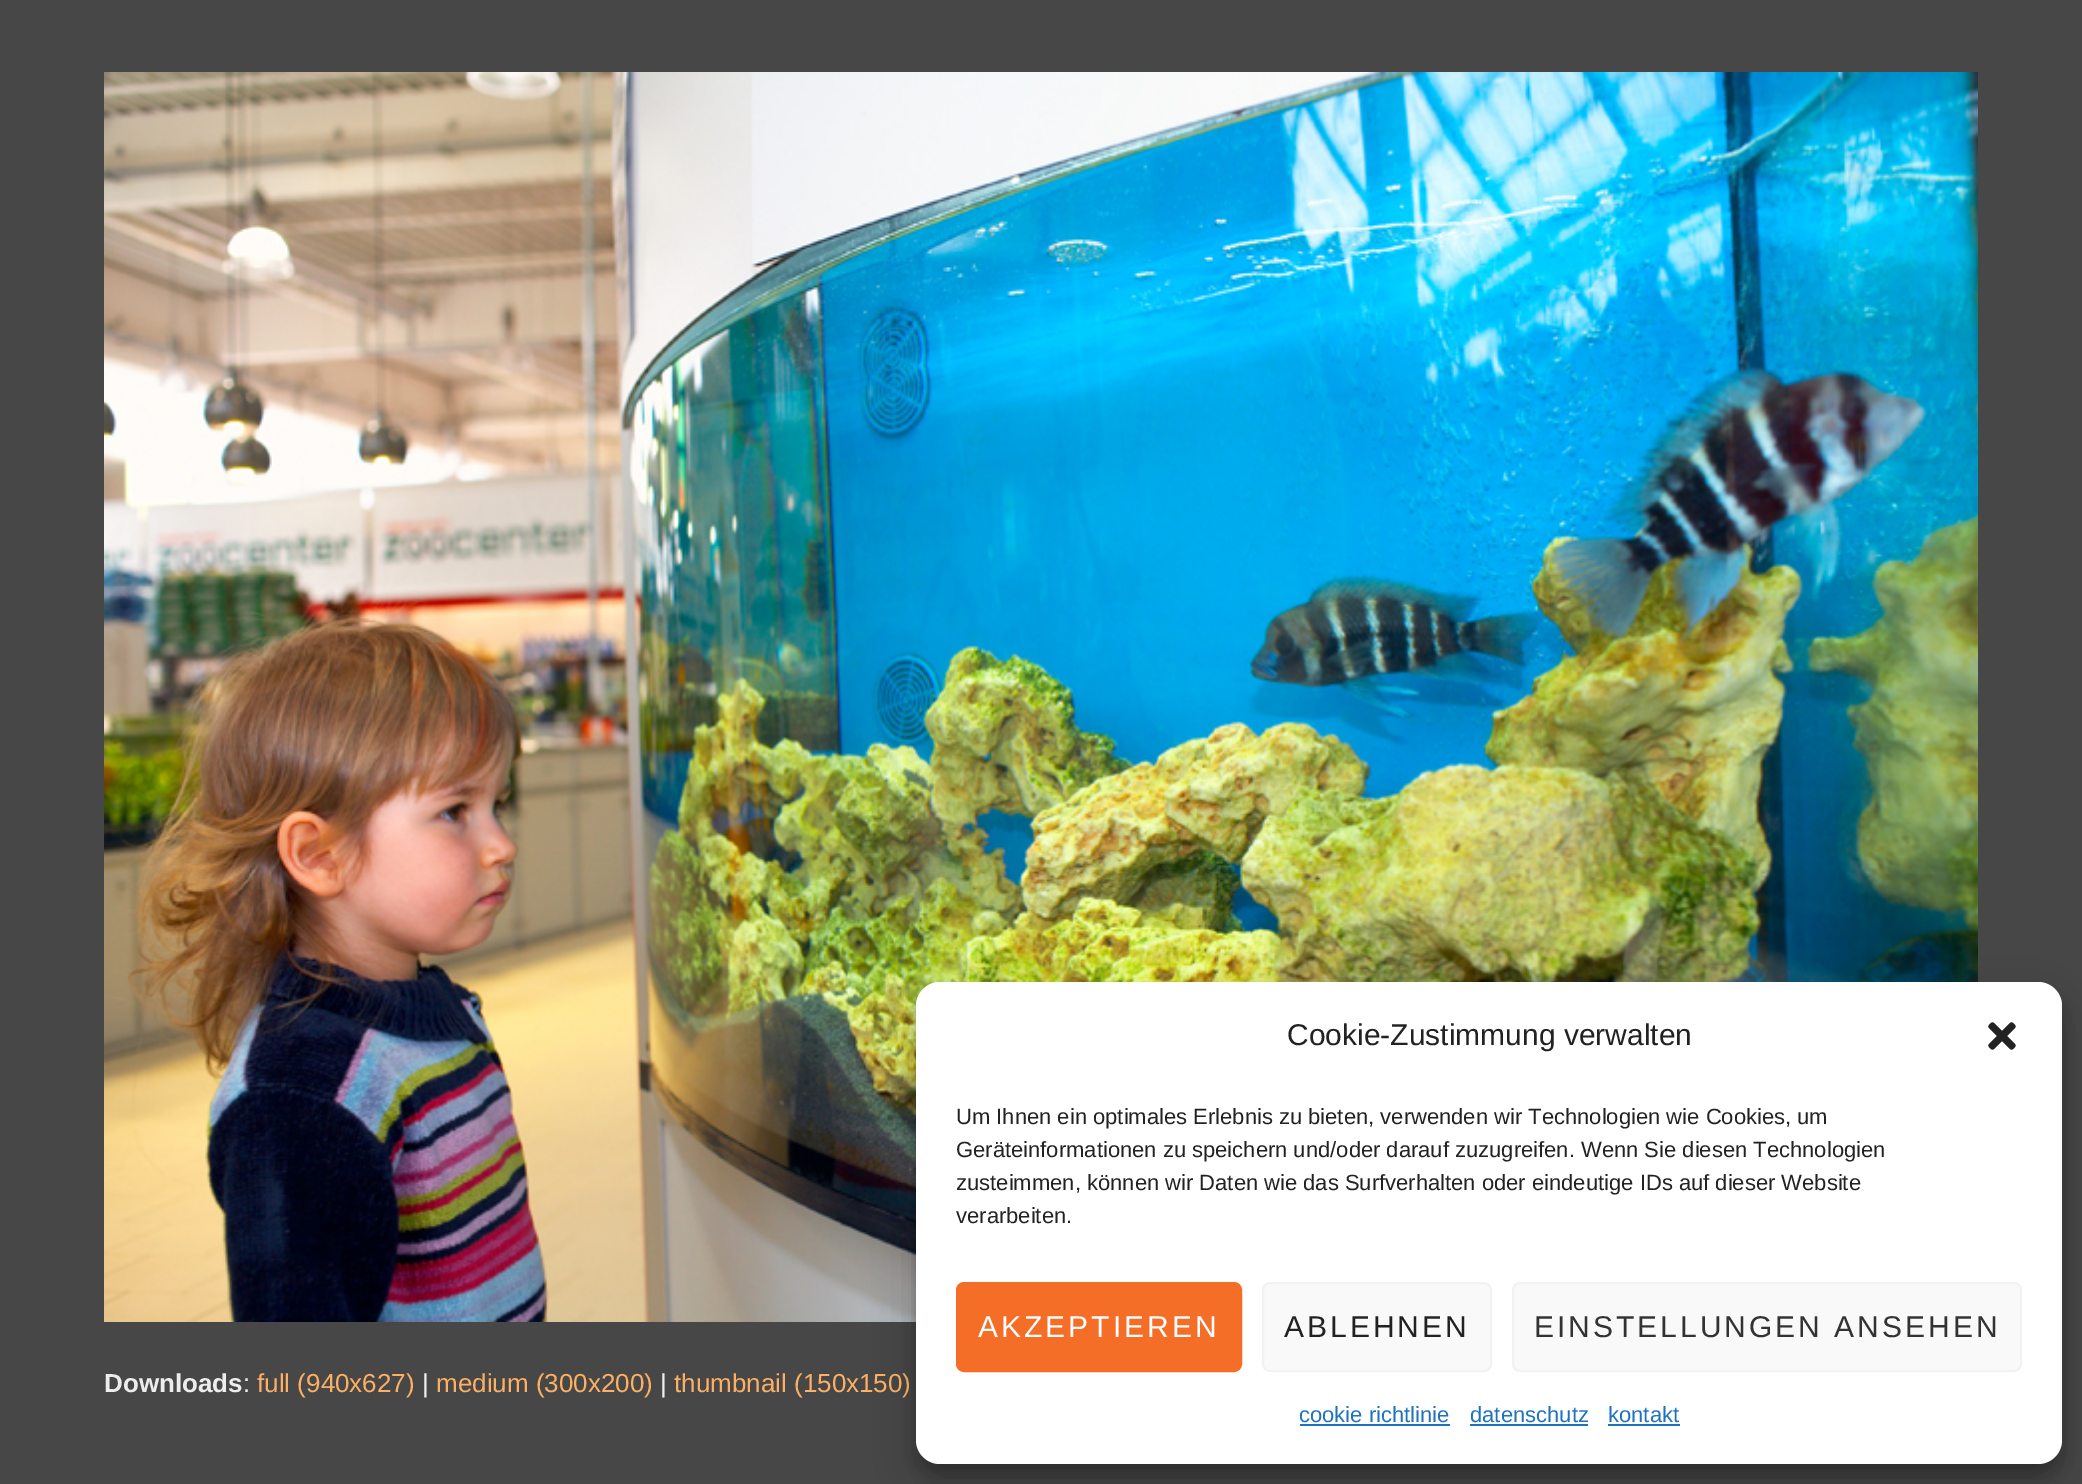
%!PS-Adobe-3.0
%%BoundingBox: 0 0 2082 1484
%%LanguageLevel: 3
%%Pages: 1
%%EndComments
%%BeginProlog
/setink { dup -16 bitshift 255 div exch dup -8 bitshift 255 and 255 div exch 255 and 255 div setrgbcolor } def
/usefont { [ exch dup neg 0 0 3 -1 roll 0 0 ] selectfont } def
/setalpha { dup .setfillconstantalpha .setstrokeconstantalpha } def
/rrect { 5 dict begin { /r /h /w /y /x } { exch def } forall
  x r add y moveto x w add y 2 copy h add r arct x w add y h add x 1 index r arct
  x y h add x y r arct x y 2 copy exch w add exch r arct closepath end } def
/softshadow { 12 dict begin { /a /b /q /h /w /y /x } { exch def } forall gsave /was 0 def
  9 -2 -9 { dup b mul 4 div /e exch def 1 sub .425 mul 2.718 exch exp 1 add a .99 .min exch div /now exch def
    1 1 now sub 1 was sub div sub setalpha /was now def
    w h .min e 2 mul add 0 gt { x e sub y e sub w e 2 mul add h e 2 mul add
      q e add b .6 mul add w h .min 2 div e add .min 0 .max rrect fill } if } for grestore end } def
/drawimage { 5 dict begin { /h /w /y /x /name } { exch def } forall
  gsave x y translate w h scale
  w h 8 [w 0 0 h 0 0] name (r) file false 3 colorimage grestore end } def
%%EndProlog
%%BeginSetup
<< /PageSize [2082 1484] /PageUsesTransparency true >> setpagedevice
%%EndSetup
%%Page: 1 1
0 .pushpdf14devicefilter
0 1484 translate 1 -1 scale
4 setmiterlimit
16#474747 setink
0 0 2082 1484 rectfill
(img1.raw) 104 72 1874 1250 drawimage
/LiberationSans-Bold 26 usefont
16#EDEDED setink
104 1392 moveto (Downloads) show
/LiberationSans-Regular 26 usefont
243 1392 moveto (:) show
16#FCB064 setink
257 1392 moveto (full \(940x627\)) show
16#EDEDED setink
422 1392 moveto (|) show
16#FCB064 setink
436 1392 moveto (medium \(300x200\)) show
16#EDEDED setink
660 1392 moveto (|) show
16#FCB064 setink
674 1392 moveto (thumbnail \(150x150\)) show
16#000000 setink
916 994 1146 482 24 6 0.23 softshadow
916 1002 1146 482 24 20 0.19 softshadow
16#FFFFFF setink
916 982 1146 482 24 rrect fill
/LiberationSans-Regular 30 usefont
16#222222 setink
1287 1045 moveto (Cookie-Zustimmung verwalten) show
(img2.raw) 1988 1022 28 28 drawimage
/LiberationSans-Regular 22 usefont
[
    [(Um Ihnen ein optimales Erlebnis zu bieten, verwenden wir Technologien wie Cookies, um) 956 1124]
    [(Geräteinformationen zu speichern und/oder darauf zuzugreifen. Wenn Sie diesen Technologien) 956 1157]
    [(zusteimmen, können wir Daten wie das Surfverhalten oder eindeutige IDs auf dieser Website) 956 1190]
    [(verarbeiten.) 956 1223]
] { aload pop moveto show } forall
16#F56E28 setink
957 1283 284 88 7 rrect gsave fill grestore
2 setlinewidth
stroke
/LiberationSans-Regular 30 usefont
16#FFFFFF setink
978 1337 moveto 3 0 (AKZEPTIEREN) ashow
16#F9F9F9 setink
1263 1283 228 88 7 rrect gsave fill grestore
16#F2F2F2 setink
stroke
16#222222 setink
1284 1337 moveto 3 0 (ABLEHNEN) ashow
16#F9F9F9 setink
1513 1283 508 88 7 rrect gsave fill grestore
16#F2F2F2 setink
stroke
16#333333 setink
1534 1337 moveto 3 0 (EINSTELLUNGEN ANSEHEN) ashow
/LiberationSans-Regular 22 usefont
16#1E73BE setink
1299 1422 moveto (cookie richtlinie) show
1300 1424 150 2 rectfill
1470 1422 moveto (datenschutz) show
1470 1424 118 2 rectfill
1608 1422 moveto (kontakt) show
1608 1424 72 2 rectfill
.poppdf14devicefilter showpage
%%EOF
